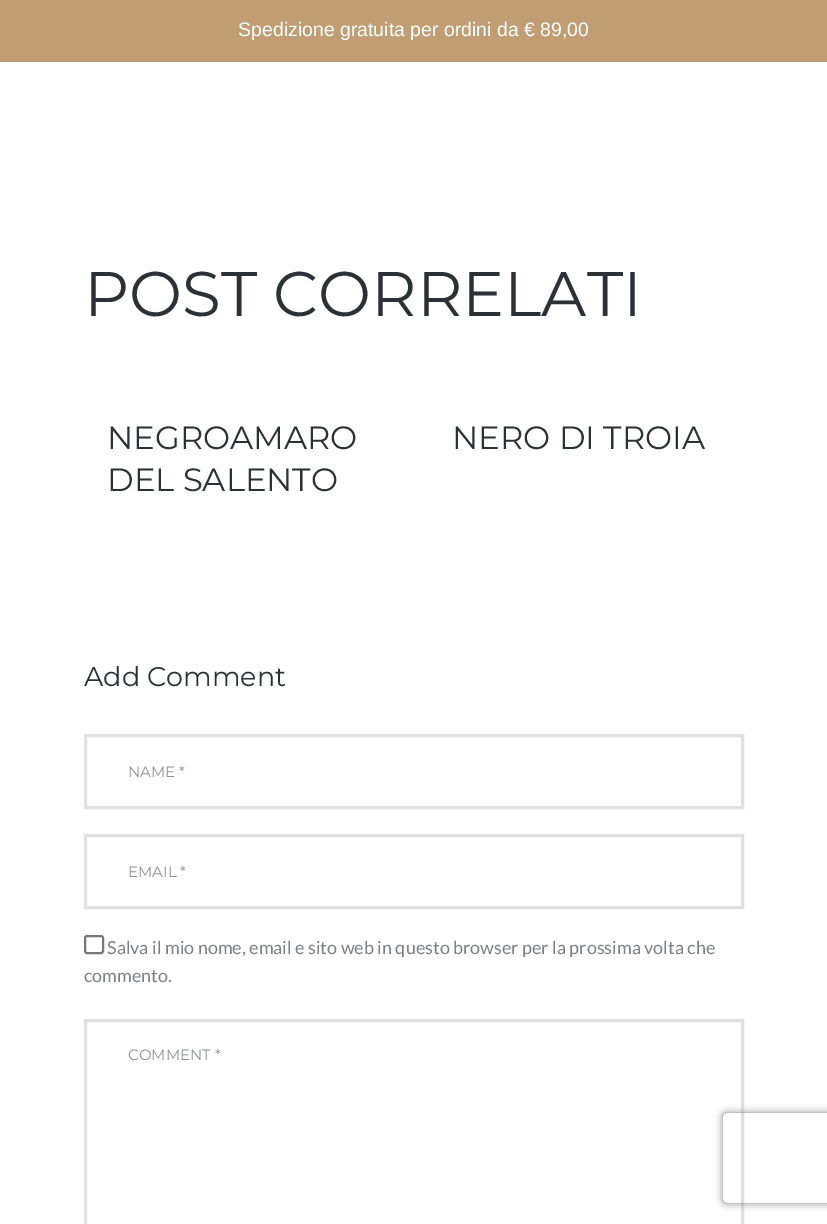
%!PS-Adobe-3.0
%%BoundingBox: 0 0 827 1224
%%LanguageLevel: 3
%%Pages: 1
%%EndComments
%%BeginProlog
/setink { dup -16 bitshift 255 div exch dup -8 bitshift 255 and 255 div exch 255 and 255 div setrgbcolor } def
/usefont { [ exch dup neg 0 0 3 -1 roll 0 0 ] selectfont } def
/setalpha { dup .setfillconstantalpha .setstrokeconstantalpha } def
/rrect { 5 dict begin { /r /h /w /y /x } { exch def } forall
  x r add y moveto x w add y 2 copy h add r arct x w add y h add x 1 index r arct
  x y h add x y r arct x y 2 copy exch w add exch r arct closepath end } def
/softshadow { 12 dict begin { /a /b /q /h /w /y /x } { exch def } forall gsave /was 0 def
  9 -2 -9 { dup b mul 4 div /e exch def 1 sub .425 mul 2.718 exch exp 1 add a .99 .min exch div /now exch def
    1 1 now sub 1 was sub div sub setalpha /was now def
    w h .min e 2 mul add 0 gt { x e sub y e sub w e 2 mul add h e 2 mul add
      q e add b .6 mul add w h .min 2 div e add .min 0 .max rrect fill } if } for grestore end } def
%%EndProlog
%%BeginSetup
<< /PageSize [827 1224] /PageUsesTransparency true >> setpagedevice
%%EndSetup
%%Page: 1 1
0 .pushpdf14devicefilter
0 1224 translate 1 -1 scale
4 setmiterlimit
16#FFFFFF setink
0 0 827 1224 rectfill
16#C09D72 setink
0 0 827 62 rectfill
/LiberationSans-Regular 19.5 usefont
16#FFFFFF setink
238 36 moveto (Spedizione gratuita per ordini da € 89,00) show
/Montserrat-Regular 63 usefont
16#2C3136 setink
84 316 moveto (POST CORRELATI) show
/Montserrat-Regular 32.25 usefont
[
    [(NEGROAMARO) 107 449]
    [(DEL SALENTO) 107 491]
    [(NERO DI TROIA) 452 449]
] { aload pop moveto show } forall
/Montserrat-Regular 27 usefont
84 686 moveto (Add Comment) show
16#E0E0E1 setink
3 setlinewidth
85.5 735.5 657 72 rectstroke
/Montserrat-Regular 15 usefont
16#8F9090 setink
128 777 moveto (NAME *) show
16#E0E0E1 setink
85.5 835.5 657 72 rectstroke
16#8F9090 setink
128 877 moveto (EMAIL *) show
16#767676 setink
2 setlinewidth
85 936 18 17 2 rrect stroke
/Lato-Regular 18 usefont
16#7D7F81 setink
107 954 moveto (Salva il mio nome, email e sito web in questo browser per la prossima volta che) show
84 982 moveto (commento.) show
16#E0E0E1 setink
3 setlinewidth
85.5 1020.5 657 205 rectstroke
/Montserrat-Regular 15 usefont
16#8F9090 setink
128 1060 moveto (COMMENT *) show
gsave
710 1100 moveto 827 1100 lineto 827 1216 lineto 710 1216 lineto closepath 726 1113 moveto 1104 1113 lineto 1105.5 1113 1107 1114.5 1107 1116 curveto 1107 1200 lineto 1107 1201.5 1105.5 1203 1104 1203 curveto 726 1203 lineto 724.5 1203 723 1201.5 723 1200 curveto 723 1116 lineto 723 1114.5 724.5 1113 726 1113 curveto closepath eoclip newpath
16#808080 setink
723 1113 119 90 3 4 1 softshadow
grestore
.poppdf14devicefilter showpage
%%EOF
